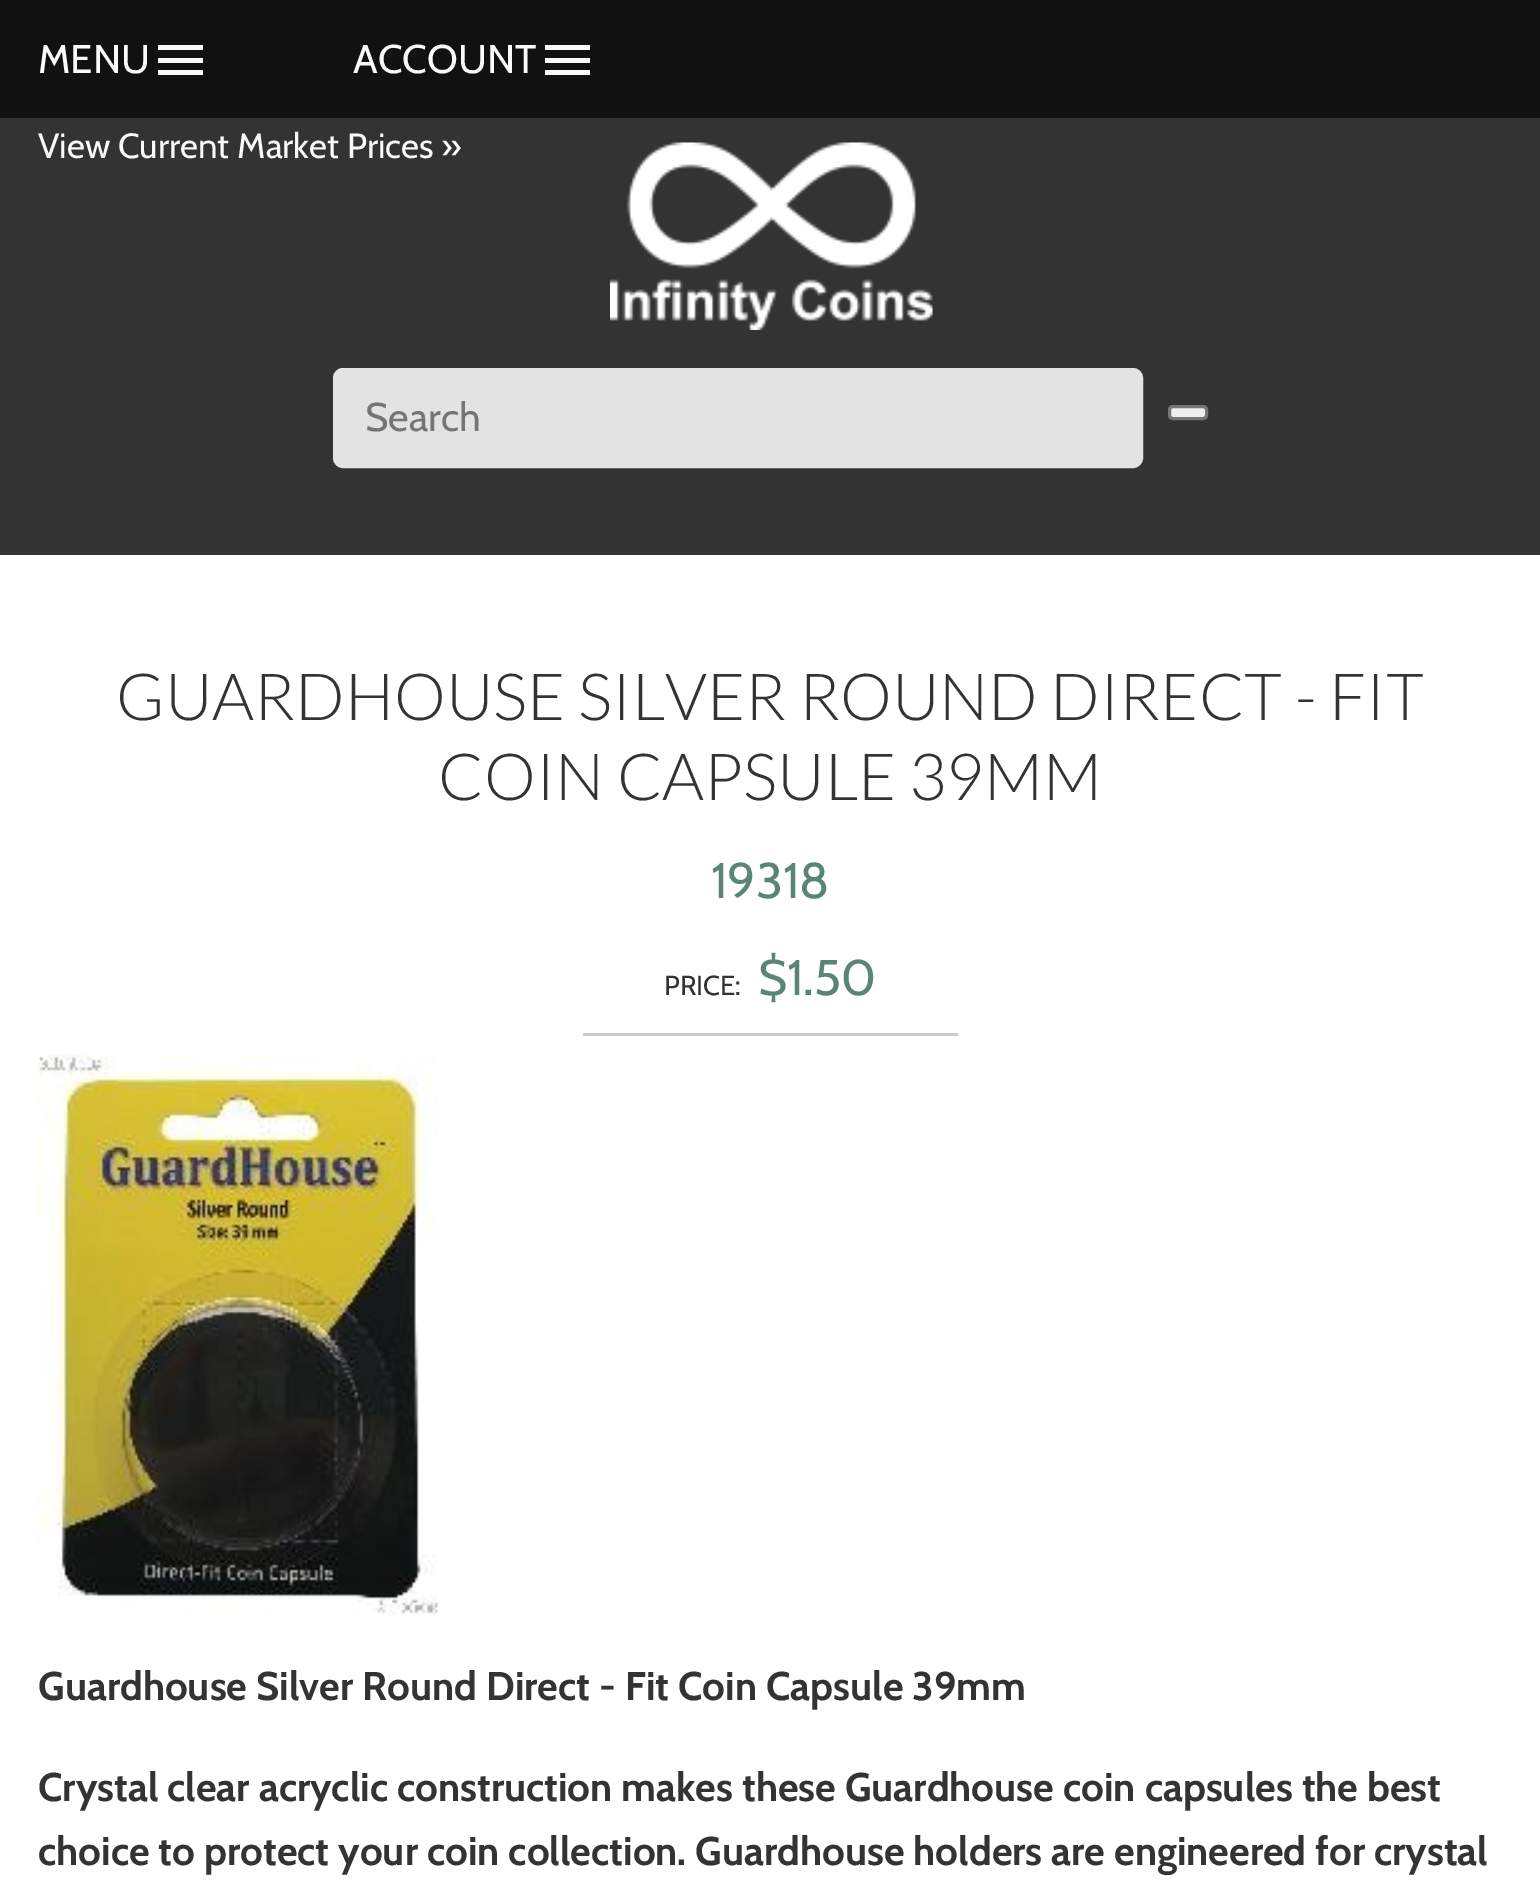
%!PS-Adobe-3.0
%%BoundingBox: 0 0 1540 1885
%%LanguageLevel: 3
%%Pages: 1
%%EndComments
%%BeginProlog
/setink { dup -16 bitshift 255 div exch dup -8 bitshift 255 and 255 div exch 255 and 255 div setrgbcolor } def
/usefont { [ exch dup neg 0 0 3 -1 roll 0 0 ] selectfont } def
/rrect { 5 dict begin { /r /h /w /y /x } { exch def } forall
  x r add y moveto x w add y 2 copy h add r arct x w add y h add x 1 index r arct
  x y h add x y r arct x y 2 copy exch w add exch r arct closepath end } def
/drawimage { 5 dict begin { /h /w /y /x /name } { exch def } forall
  gsave x y translate w h scale
  w h 8 [w 0 0 h 0 0] name (r) file false 3 colorimage grestore end } def
%%EndProlog
%%BeginSetup
<< /PageSize [1540 1885] >> setpagedevice
%%EndSetup
%%Page: 1 1
0 1885 translate 1 -1 scale
4 setmiterlimit
16#FFFFFF setink
0 0 1540 1885 rectfill
16#111111 setink
0 0 1540 118 rectfill
/Cabin-Regular 40 usefont
16#FAFAFA setink
38 73 moveto (MENU) show
[
    [158 58 45 5 16#FAFAFA]
    [158 45 45 5 16#FAFAFA]
    [158 70 45 5 16#FAFAFA]
] { aload pop setink rectfill } forall
353 73 moveto (ACCOUNT) show
[
    [545 58 45 5 16#FAFAFA]
    [545 45 45 5 16#FAFAFA]
    [545 70 45 5 16#FAFAFA]
    [0 118 1540 437 16#333333]
] { aload pop setink rectfill } forall
/Cabin-Regular 35 usefont
16#FAFAFA setink
38 158 moveto (View Current Market Prices ») show
(img1.raw) 610 142 323 188 drawimage
16#E3E3E3 setink
334.5 369.5 807 97 8.5 rrect gsave fill grestore
3 setlinewidth
stroke
/Cabin-Regular 40 usefont
16#757575 setink
365 431 moveto (Search) show
16#EFEFEF setink
1169.5 406.5 37 12 3.5 rrect gsave fill grestore
16#767676 setink
stroke
/Lato-Light 65 usefont
16#333333 setink
116 720 moveto (GUARDHOUSE SILVER ROUND DIRECT - FIT) show
438 800 moveto (COIN CAPSULE 39MM) show
/Cabin-Regular 50 usefont
16#5B8573 setink
711 898 moveto (19318) show
/Cabin-Regular 27.5 usefont
16#333333 setink
664 995 moveto (PRICE:) show
/Cabin-Regular 50 usefont
16#5B8573 setink
758 995 moveto ($1.50) show
16#CCCCCC setink
583 1033 375 3 rectfill
(img2.raw) 37 1055 402 560 drawimage
/Cabin-Bold 40 usefont
16#333333 setink
[
    [(Guardhouse Silver Round Direct - Fit Coin Capsule 39mm) 38 1700]
    [(Crystal clear acryclic construction makes these Guardhouse coin capsules the best) 38 1801]
    [(choice to protect your coin collection. Guardhouse holders are engineered for crystal) 38 1865]
] { aload pop moveto show } forall
showpage
%%EOF
